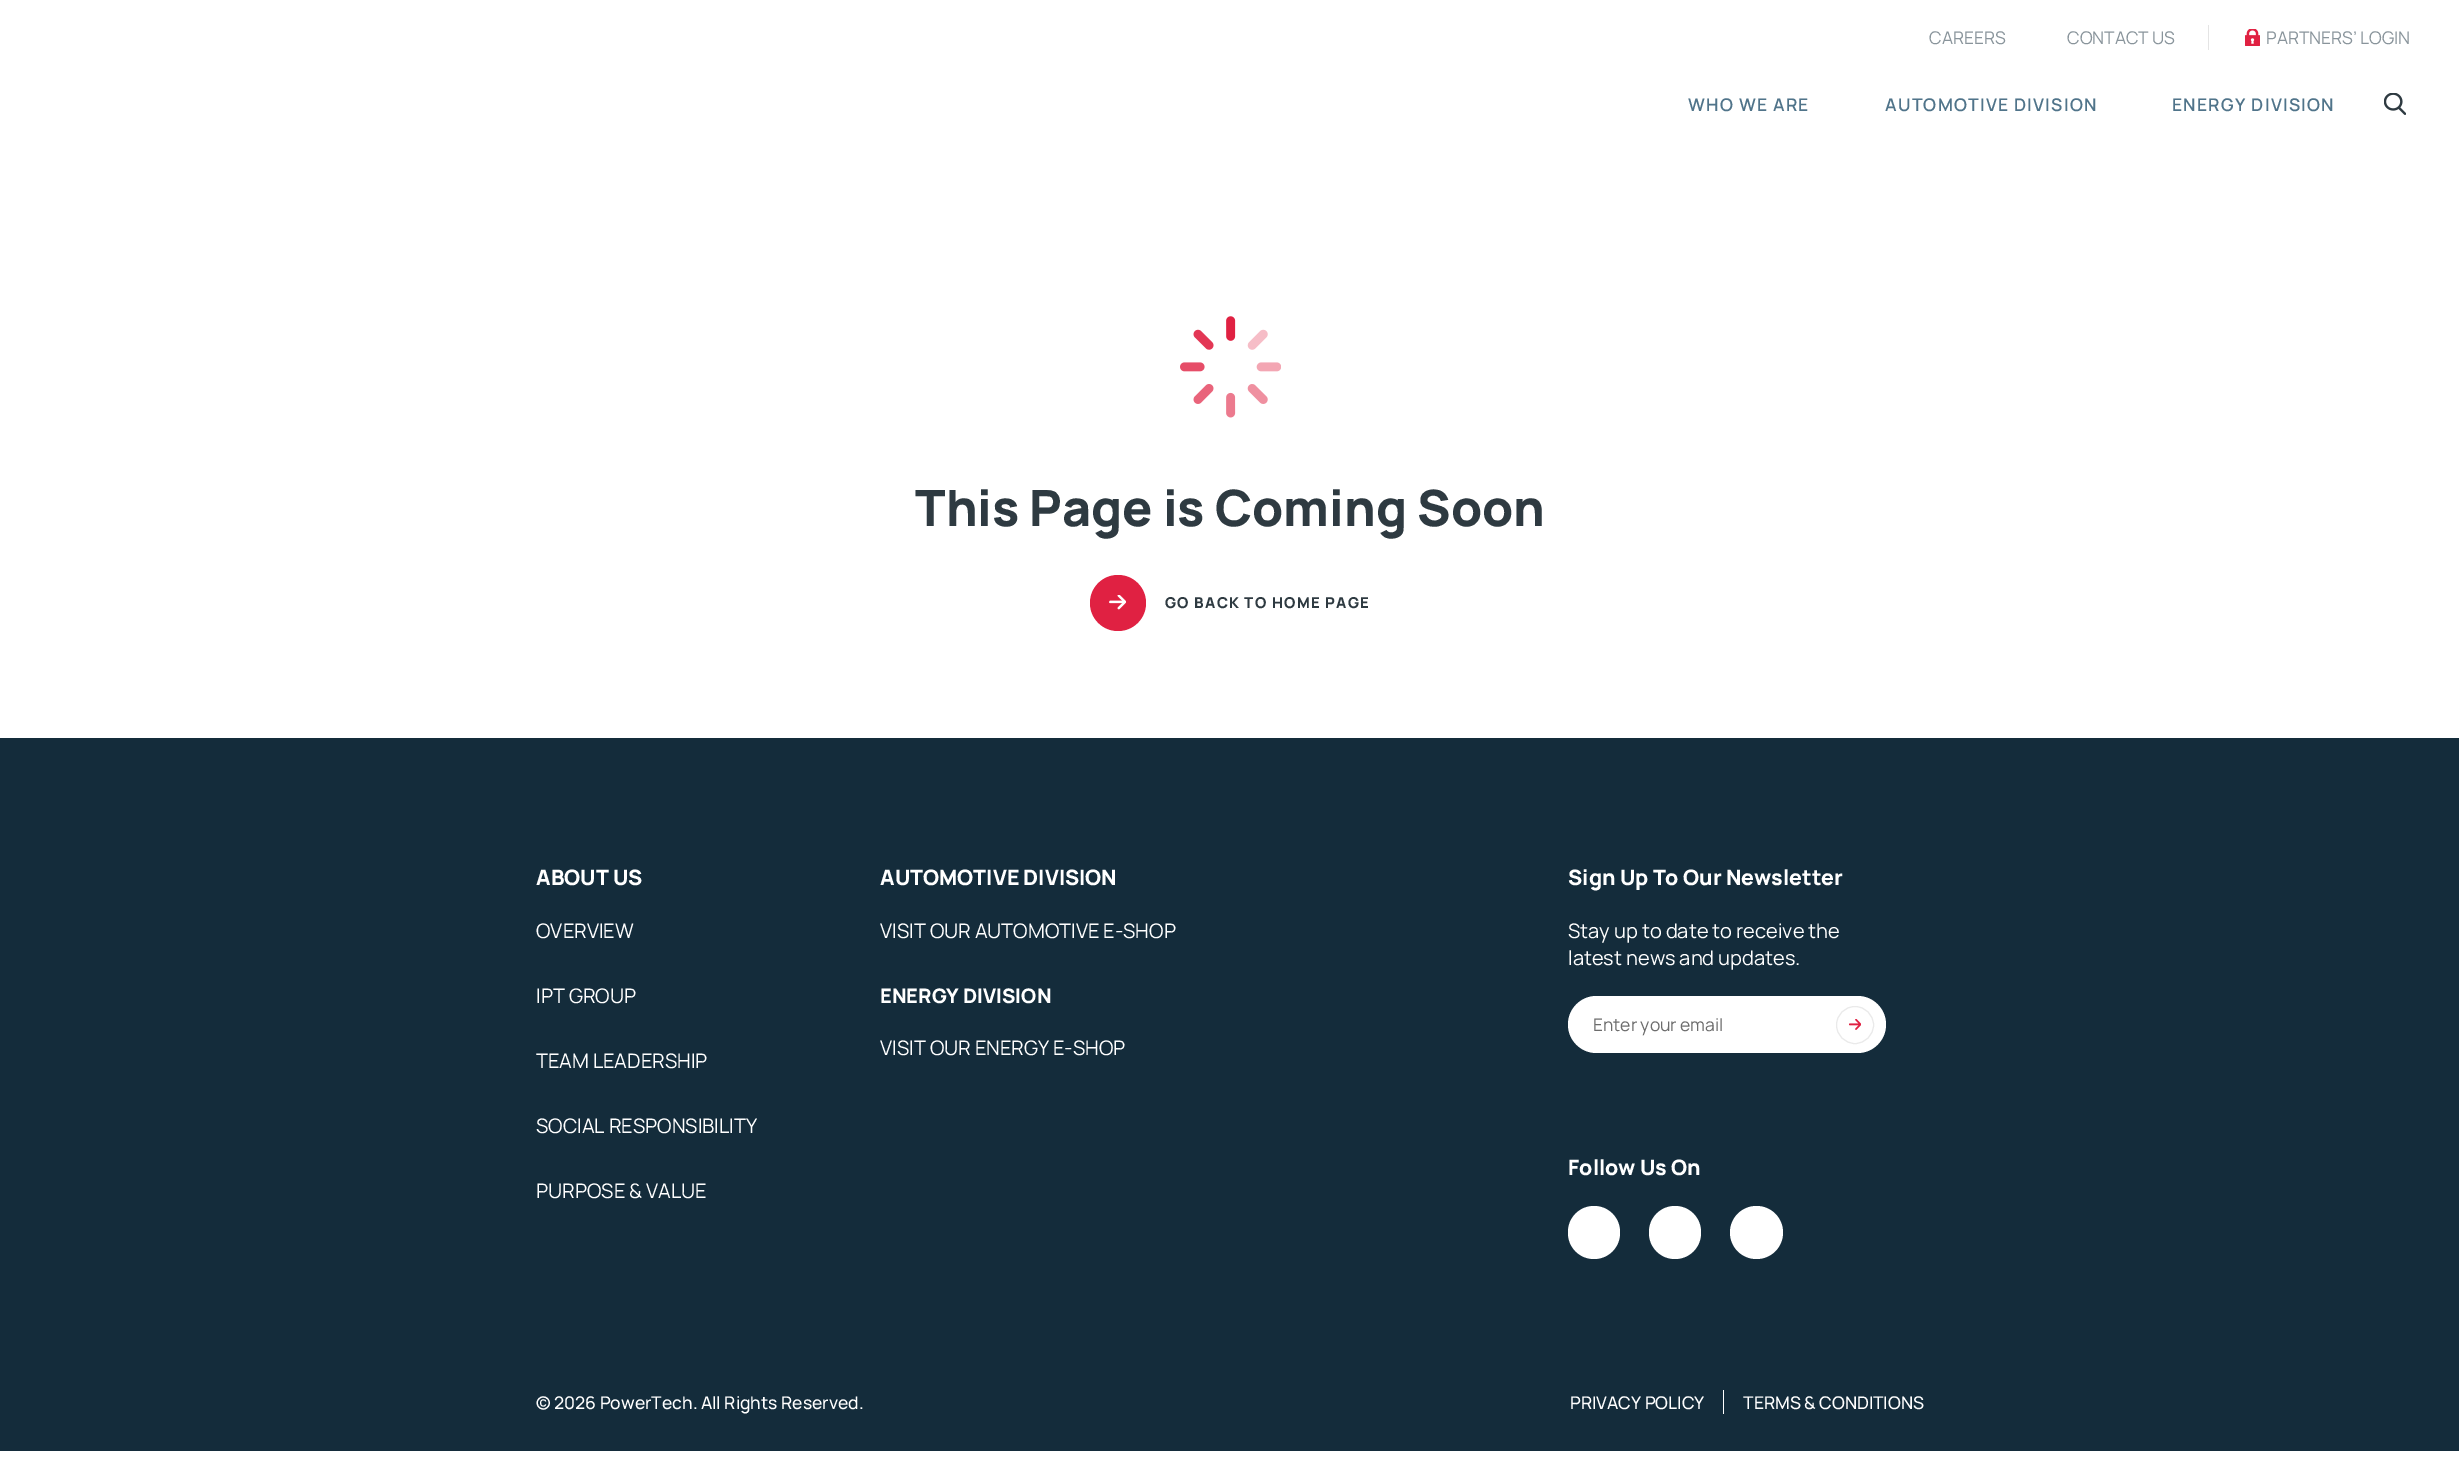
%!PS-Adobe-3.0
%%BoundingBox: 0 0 2459 1465
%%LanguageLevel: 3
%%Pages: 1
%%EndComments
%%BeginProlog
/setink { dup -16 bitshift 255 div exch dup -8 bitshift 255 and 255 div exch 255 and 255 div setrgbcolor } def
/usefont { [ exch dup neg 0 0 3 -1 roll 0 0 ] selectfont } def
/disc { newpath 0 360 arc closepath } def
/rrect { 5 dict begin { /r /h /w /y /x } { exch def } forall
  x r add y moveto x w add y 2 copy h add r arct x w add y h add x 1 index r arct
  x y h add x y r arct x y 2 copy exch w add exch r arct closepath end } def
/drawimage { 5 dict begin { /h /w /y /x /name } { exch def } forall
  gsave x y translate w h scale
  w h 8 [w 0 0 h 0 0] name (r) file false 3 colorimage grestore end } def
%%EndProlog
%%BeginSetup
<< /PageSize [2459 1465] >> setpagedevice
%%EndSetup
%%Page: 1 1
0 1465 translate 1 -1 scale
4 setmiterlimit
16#FFFFFF setink
0 0 2459 1465 rectfill
/Manrope-Regular 17.5 usefont
16#89949B setink
1929 44 moveto (CAREERS) show
2067 44 moveto (CONTACT US) show
(img1.raw) 2245 29 15 17 drawimage
16#E4E4E4 setink
2208 25 1 25 0.5 rrect fill
16#89949B setink
2266 44 moveto (PARTNERS’ LOGIN) show
/Manrope-SemiBold 17.5 usefont
16#50748A setink
1688 111 moveto 1.25 0 (WHO WE ARE) ashow
1885 111 moveto 1.25 0 (AUTOMOTIVE DIVISION) ashow
2172 111 moveto 1.25 0 (ENERGY DIVISION) ashow
(img2.raw) 2384 93 22 22 drawimage
(img3.raw) 1180 316 101 102 drawimage
/Manrope-ExtraBold 50 usefont
16#2E3A41 setink
915 526 moveto (This Page is Coming Soon) show
16#E02142 setink
1118 603 28 disc fill
(img4.raw) 1109 595 17 15 drawimage
/Manrope-ExtraBold 15 usefont
16#2E3A41 setink
1165 608 moveto 1.25 0 (GO BACK TO HOME PAGE) ashow
16#142C3B setink
0 738 2459 713 rectfill
/Manrope-ExtraBold 21.25 usefont
16#FFFFFF setink
536 885 moveto (ABOUT US) show
/Manrope-Regular 20 usefont
[
    [(OVERVIEW) 536 938]
    [(IPT GROUP) 536 1003]
    [(TEAM LEADERSHIP) 536 1068]
    [(SOCIAL RESPONSIBILITY) 536 1133]
    [(PURPOSE & VALUE) 536 1198]
] { aload pop moveto show } forall
/Manrope-ExtraBold 21.25 usefont
880 885 moveto (AUTOMOTIVE DIVISION) show
/Manrope-Regular 20 usefont
880 938 moveto (VISIT OUR AUTOMOTIVE E-SHOP) show
/Manrope-ExtraBold 20 usefont
880 1003 moveto (ENERGY DIVISION) show
/Manrope-Regular 20 usefont
880 1055 moveto (VISIT OUR ENERGY E-SHOP) show
/Manrope-ExtraBold 21.25 usefont
1568 885 moveto (Sign Up To Our Newsletter) show
/Manrope-Regular 20 usefont
1568 938 moveto (Stay up to date to receive the) show
1568 965 moveto (latest news and updates.) show
1568 996 318 57 28.5 rrect fill
/Manrope-Regular 17.5 usefont
16#6C6C6C setink
1593 1031 moveto (Enter your email) show
(img5.raw) 1849 1019 12 11 drawimage
16#EAEAEA setink
1855 1025 18.5 disc stroke
/Manrope-ExtraBold 21.25 usefont
16#FFFFFF setink
1568 1175 moveto (Follow Us On) show
1568 1206 52 53 26 rrect fill
1649 1206 52 53 26 rrect fill
1756.5 1232.5 26.5 disc fill
/Manrope-Medium 17.5 usefont
536 1409 moveto (© 2026 PowerTech. All Rights Reserved.) show
1723 1390 1 24 rectfill
1570 1409 moveto (PRIVACY POLICY) show
1743 1409 moveto (TERMS & CONDITIONS) show
showpage
%%EOF
